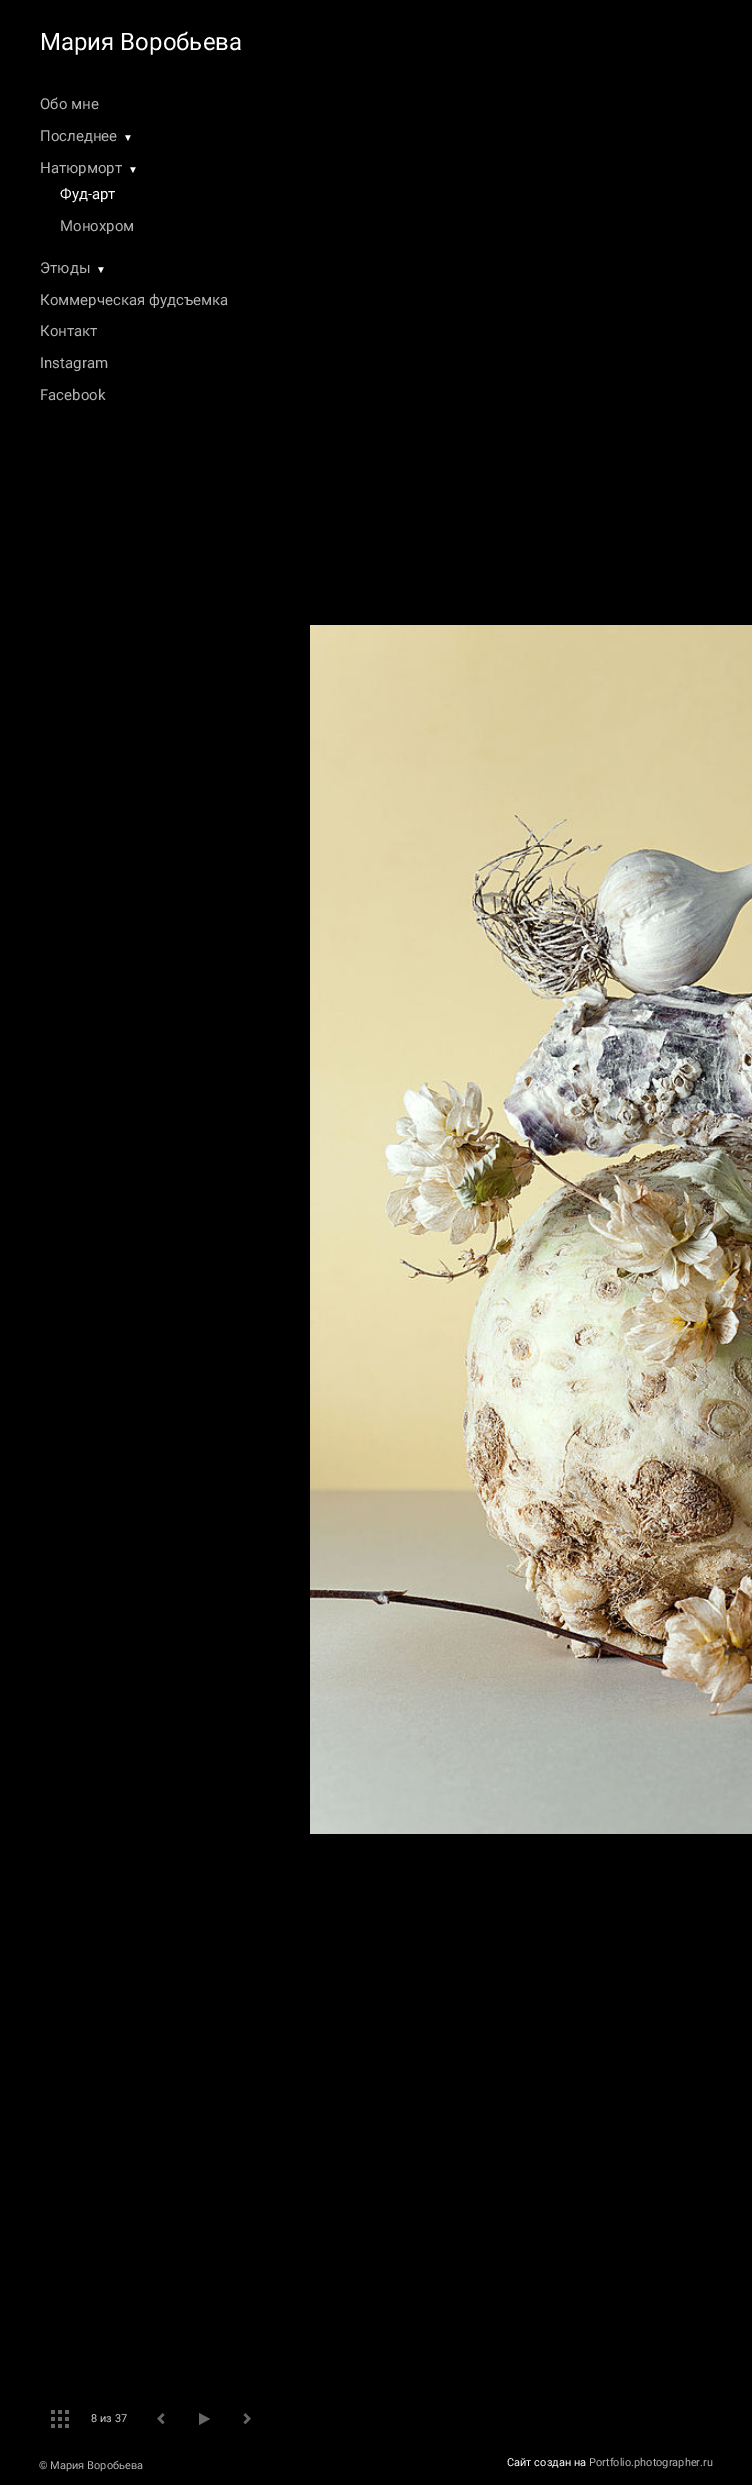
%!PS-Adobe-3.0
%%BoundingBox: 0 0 752 2485
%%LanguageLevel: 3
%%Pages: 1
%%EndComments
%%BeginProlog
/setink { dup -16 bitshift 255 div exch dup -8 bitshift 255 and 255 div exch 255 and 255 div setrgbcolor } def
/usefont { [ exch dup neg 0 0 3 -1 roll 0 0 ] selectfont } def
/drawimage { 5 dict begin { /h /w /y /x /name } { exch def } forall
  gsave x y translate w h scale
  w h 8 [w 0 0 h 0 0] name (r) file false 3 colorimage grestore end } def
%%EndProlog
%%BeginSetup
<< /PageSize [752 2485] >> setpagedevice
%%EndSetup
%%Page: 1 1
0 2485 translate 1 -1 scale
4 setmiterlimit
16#000000 setink
0 0 752 2485 rectfill
/Roboto-Regular 24 usefont
16#FFFFFF setink
40 50 moveto (Мария Воробьева) show
/Roboto-Regular 15 usefont
16#B3B3B3 setink
40 109 moveto (Обо мне) show
40 141 moveto (Последнее) show
/LiberationSerif-Regular 10 usefont
16#FFFFFF setink
123 141 moveto (▼) show
/Roboto-Regular 15 usefont
16#B3B3B3 setink
40 173 moveto (Натюрморт) show
/LiberationSerif-Regular 10 usefont
16#FFFFFF setink
128 173 moveto (▼) show
/Roboto-Regular 15 usefont
60 199 moveto (Фуд-арт) show
16#B3B3B3 setink
60 231 moveto (Монохром) show
40 273 moveto (Этюды) show
/LiberationSerif-Regular 10 usefont
16#FFFFFF setink
96 273 moveto (▼) show
/Roboto-Regular 15 usefont
16#B3B3B3 setink
[
    [(Коммерческая фудсъемка) 40 305]
    [(Контакт) 40 336]
    [(Instagram) 40 368]
    [(Facebook) 40 400]
] { aload pop moveto show } forall
(img1.raw) 51 2410 18 18 drawimage
/Roboto-Regular 11 usefont
16#CCCCCC setink
91 2422 moveto (8 из 37) show
(img2.raw) 157 2413 8 12 drawimage
16#666666 setink
210 2419 moveto 199 2425 lineto 199 2413 lineto closepath fill
(img3.raw) 243 2413 8 12 drawimage
(img4.raw) 310 625 442 1209 drawimage
16#B3B3B3 setink
39 2469 moveto (© Мария Воробьева) show
16#FFFFFF setink
507 2466 moveto (Сайт создан на) show
16#B3B3B3 setink
589 2466 moveto (Portfolio.photographer.ru) show
showpage
%%EOF
